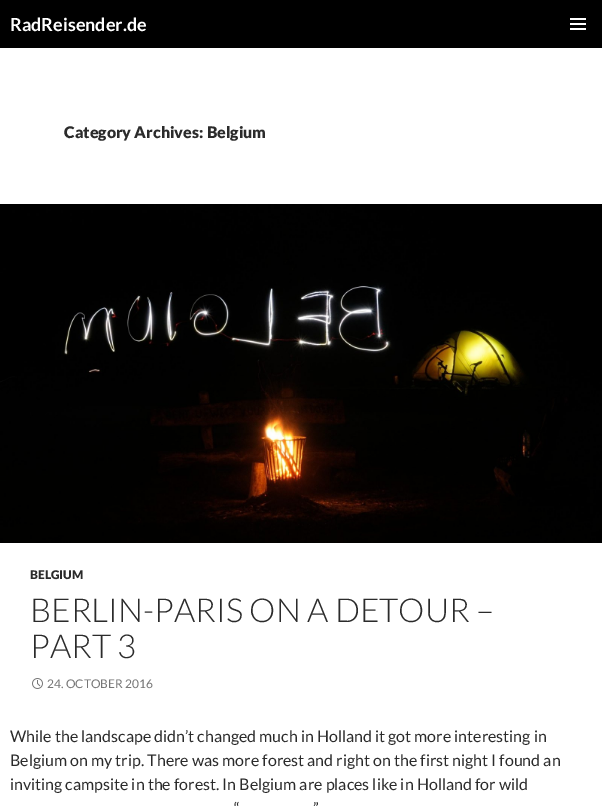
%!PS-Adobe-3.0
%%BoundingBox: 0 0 602 811
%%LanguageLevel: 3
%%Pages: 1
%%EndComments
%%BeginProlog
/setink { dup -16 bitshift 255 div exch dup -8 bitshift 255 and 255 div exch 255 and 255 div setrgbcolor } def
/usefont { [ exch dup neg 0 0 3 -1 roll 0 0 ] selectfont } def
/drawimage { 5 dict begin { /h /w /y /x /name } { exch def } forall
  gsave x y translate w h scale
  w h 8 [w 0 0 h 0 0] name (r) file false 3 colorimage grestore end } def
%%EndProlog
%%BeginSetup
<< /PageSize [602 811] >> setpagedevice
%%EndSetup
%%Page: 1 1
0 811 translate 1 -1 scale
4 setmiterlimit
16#FFFFFF setink
0 0 602 811 rectfill
16#000000 setink
0 0 602 48 rectfill
/Lato-Bold 18 usefont
16#FFFFFF setink
10 31 moveto (RadReisender.de) show
(img1.raw) 570 18 16 12 drawimage
/Lato-Black 16 usefont
16#2B2B2B setink
64 138 moveto (Category Archives: Belgium) show
(img2.raw) 0 204 602 339 drawimage
/Lato-Black 12 usefont
30 579 moveto (BELGIUM) show
/Lato-Light 33 usefont
30 622 moveto (BERLIN-PARIS ON A DETOUR –) show
30 658 moveto (PART 3) show
(img3.raw) 32 678 11 11 drawimage
/Lato-Regular 12 usefont
16#767676 setink
47 688 moveto (24. OCTOBER 2016) show
/Lato-Regular 16 usefont
16#2B2B2B setink
[
    [(While the landscape didn’t changed much in Holland it got more interesting in) 10 742]
    [(Belgium on my trip. There was more forest and right on the first night I found an) 10 766]
    [(inviting campsite in the forest. In Belgium are places like in Holland for wild) 10 790]
    [(“) 234 814]
    [(”) 313 814]
] { aload pop moveto show } forall
showpage
%%EOF
